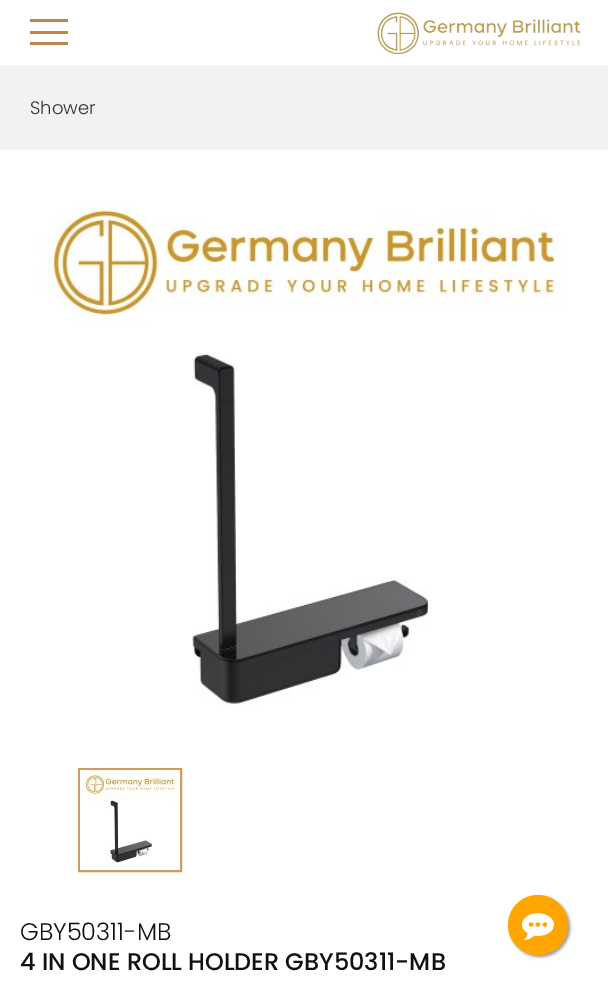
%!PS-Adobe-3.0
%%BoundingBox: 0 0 608 995
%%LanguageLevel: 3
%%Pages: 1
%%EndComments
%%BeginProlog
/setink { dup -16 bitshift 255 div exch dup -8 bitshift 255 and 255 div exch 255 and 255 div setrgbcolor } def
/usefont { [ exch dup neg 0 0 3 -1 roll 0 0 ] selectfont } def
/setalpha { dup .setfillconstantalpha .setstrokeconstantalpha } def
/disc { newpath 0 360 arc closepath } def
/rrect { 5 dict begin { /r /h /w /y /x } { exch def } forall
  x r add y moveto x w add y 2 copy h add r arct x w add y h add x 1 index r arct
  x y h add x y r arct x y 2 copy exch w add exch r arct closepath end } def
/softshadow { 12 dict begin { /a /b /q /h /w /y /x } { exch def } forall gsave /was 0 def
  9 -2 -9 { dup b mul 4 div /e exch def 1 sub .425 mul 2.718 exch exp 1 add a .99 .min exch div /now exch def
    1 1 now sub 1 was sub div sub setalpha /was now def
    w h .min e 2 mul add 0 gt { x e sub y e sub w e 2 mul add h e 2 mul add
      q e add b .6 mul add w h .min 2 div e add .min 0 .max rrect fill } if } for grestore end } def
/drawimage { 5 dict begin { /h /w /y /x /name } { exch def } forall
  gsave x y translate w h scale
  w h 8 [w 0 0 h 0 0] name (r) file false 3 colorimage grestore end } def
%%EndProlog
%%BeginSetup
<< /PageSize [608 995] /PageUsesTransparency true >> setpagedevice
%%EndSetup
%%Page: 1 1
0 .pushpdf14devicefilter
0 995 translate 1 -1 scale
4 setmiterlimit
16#FFFFFF setink
0 0 608 995 rectfill
[
    [30 19 38 3 16#B7894E]
    [30 31 38 3 16#B7894E]
    [30 42 38 3 16#B7894E]
] { aload pop setink rectfill } forall
(img1.raw) 377 12 204 43 drawimage
16#F2F2F2 setink
0 65 608 85 rectfill
/Poppins-Light 18 usefont
16#333333 setink
30 114 moveto (Shower) show
(img2.raw) 38 201 527 505 drawimage
16#CD9C5E setink
2 setlinewidth
79 769 102 102 rectstroke
(img3.raw) 80 770 100 100 drawimage
/Poppins-Light 24 usefont
16#111111 setink
20 940 moveto (GBY50311-MB) show
/Poppins-Medium 24 usefont
20 970 moveto (4 IN ONE ROLL HOLDER GBY50311-MB) show
16#999999 setink
510 897 60 60 30 1.5 1 softshadow
16#FFA500 setink
538 925 30 disc fill
(img4.raw) 522 913 32 27 drawimage
.poppdf14devicefilter showpage
%%EOF
